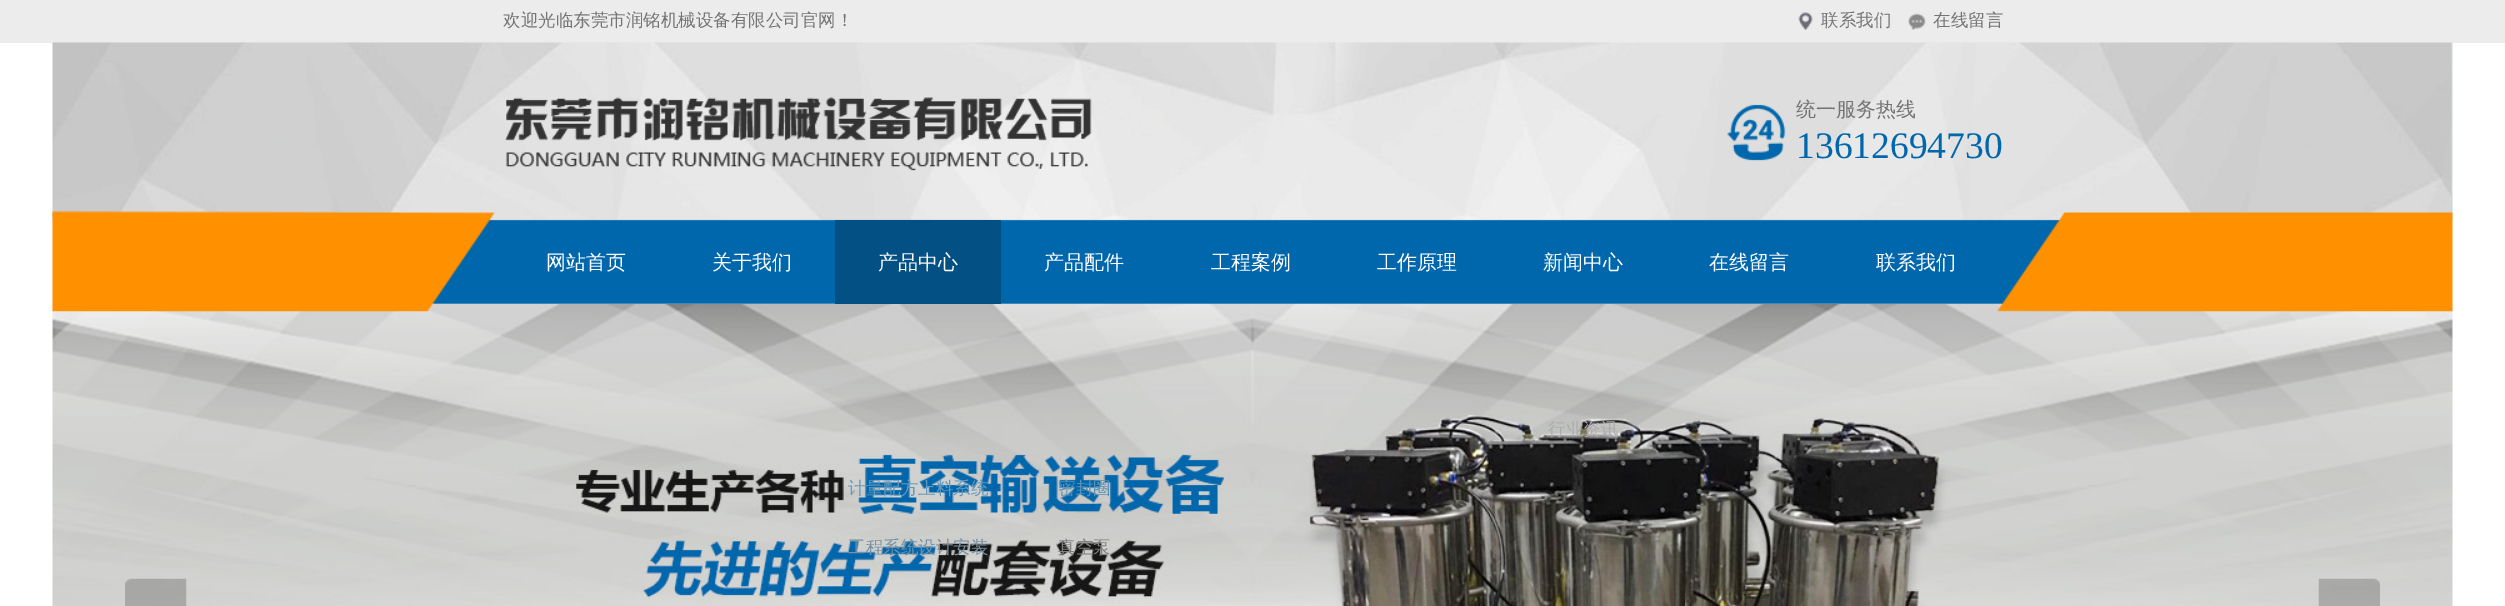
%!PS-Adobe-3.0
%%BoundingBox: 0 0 2505 606
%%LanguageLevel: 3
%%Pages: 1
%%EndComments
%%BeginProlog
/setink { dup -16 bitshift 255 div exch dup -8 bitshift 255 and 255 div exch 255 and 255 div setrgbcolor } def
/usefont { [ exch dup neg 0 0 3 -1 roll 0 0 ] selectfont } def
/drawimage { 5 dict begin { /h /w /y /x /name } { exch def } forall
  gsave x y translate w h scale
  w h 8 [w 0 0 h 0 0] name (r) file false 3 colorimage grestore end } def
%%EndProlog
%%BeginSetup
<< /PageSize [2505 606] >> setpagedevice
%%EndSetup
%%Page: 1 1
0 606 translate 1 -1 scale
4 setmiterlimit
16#FFFFFF setink
0 0 2505 606 rectfill
16#ECECEC setink
0 0 2505 43 rectfill
/WenQuanYiZenHei-Medium 17.5 usefont
16#747474 setink
503 26 moveto (欢迎光临东莞市润铭机械设备有限公司官网！) show
(img1.raw) 1798 12 15 18 drawimage
1821 26 moveto (联系我们) show
(img2.raw) 1908 13 18 17 drawimage
1933 26 moveto (在线留言) show
(img3.raw) 52 42 2401 178 drawimage
(img4.raw) 505 97 587 74 drawimage
(img5.raw) 1727 104 59 57 drawimage
/WenQuanYiZenHei-Medium 20 usefont
1796 116 moveto (统一服务热线) show
/LiberationSerif-Regular 37.5 usefont
16#0067AC setink
1796 158 moveto (13612694730) show
(img7.raw) 52 303 2401 303 drawimage
(img6.raw) 52 211 2401 101 drawimage
/WenQuanYiZenHei-Medium 20 usefont
16#FFFFFF setink
546 269 moveto (网站首页) show
712 269 moveto (关于我们) show
16#035084 setink
835 220 166 84 rectfill
16#FFFFFF setink
878 269 moveto (产品中心) show
/WenQuanYiZenHei-Medium 17.5 usefont
16#6499BC setink
848 494 moveto (计量配方上料系统) show
16#7791A2 setink
848 553 moveto (工程系统设计安装) show
/WenQuanYiZenHei-Medium 20 usefont
16#FFFFFF setink
1044 269 moveto (产品配件) show
/WenQuanYiZenHei-Medium 17.5 usefont
16#5A92B7 setink
1058 494 moveto (密封圈) show
16#818280 setink
1058 553 moveto (真空泵) show
/WenQuanYiZenHei-Medium 20 usefont
16#FFFFFF setink
[
    [(工程案例) 1211 269]
    [(工作原理) 1377 269]
    [(新闻中心) 1543 269]
] { aload pop moveto show } forall
/WenQuanYiZenHei-Medium 17.5 usefont
16#ACACAB setink
1548 435 moveto (行业资讯) show
/WenQuanYiZenHei-Medium 20 usefont
16#FFFFFF setink
1709 269 moveto (在线留言) show
1876 269 moveto (联系我们) show
(img8.raw) 125 578 62 28 drawimage
(img9.raw) 2318 578 62 28 drawimage
showpage
%%EOF
